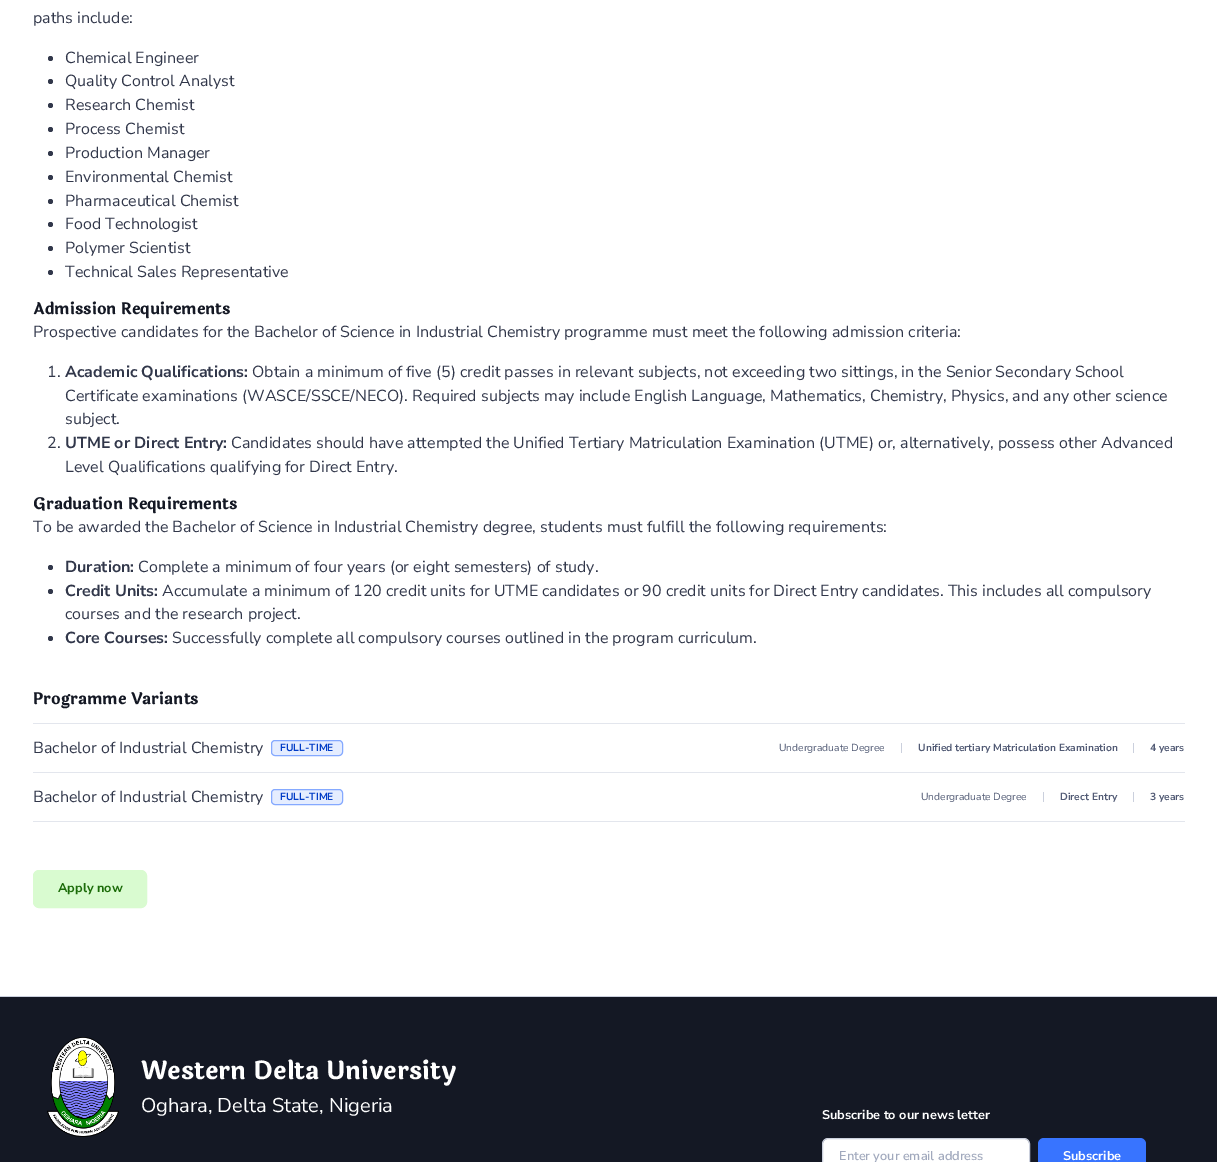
%!PS-Adobe-3.0
%%BoundingBox: 0 0 1217 1162
%%LanguageLevel: 3
%%Pages: 1
%%EndComments
%%BeginProlog
/setink { dup -16 bitshift 255 div exch dup -8 bitshift 255 and 255 div exch 255 and 255 div setrgbcolor } def
/usefont { [ exch dup neg 0 0 3 -1 roll 0 0 ] selectfont } def
/disc { newpath 0 360 arc closepath } def
/rrect { 5 dict begin { /r /h /w /y /x } { exch def } forall
  x r add y moveto x w add y 2 copy h add r arct x w add y h add x 1 index r arct
  x y h add x y r arct x y 2 copy exch w add exch r arct closepath end } def
/drawimage { 5 dict begin { /h /w /y /x /name } { exch def } forall
  gsave x y translate w h scale
  w h 8 [w 0 0 h 0 0] name (r) file false 3 colorimage grestore end } def
%%EndProlog
%%BeginSetup
<< /PageSize [1217 1162] >> setpagedevice
%%EndSetup
%%Page: 1 1
0 1162 translate 1 -1 scale
4 setmiterlimit
16#FFFFFF setink
0 0 1217 1162 rectfill
/NunitoSans-Regular 16 usefont
16#31374A setink
33 23 moveto (paths include:) show
50.5 58.5 2.5 disc fill
65 63 moveto (Chemical Engineer) show
50.5 81.5 2.5 disc fill
65 86 moveto (Quality Control Analyst) show
50.5 105.5 2.5 disc fill
65 110 moveto (Research Chemist) show
50.5 129.5 2.5 disc fill
65 134 moveto (Process Chemist) show
50.5 153.5 2.5 disc fill
65 158 moveto (Production Manager) show
50.5 177.5 2.5 disc fill
65 182 moveto (Environmental Chemist) show
50.5 201.5 2.5 disc fill
65 206 moveto (Pharmaceutical Chemist) show
50.5 224.5 2.5 disc fill
65 229 moveto (Food Technologist) show
50.5 248.5 2.5 disc fill
65 253 moveto (Polymer Scientist) show
50.5 272.5 2.5 disc fill
65 277 moveto (Technical Sales Representative) show
/Laila-Bold 16 usefont
16#141824 setink
33 314 moveto (Admission Requirements) show
/NunitoSans-Regular 16 usefont
16#31374A setink
33 337 moveto (Prospective candidates for the Bachelor of Science in Industrial Chemistry programme must meet the following admission criteria:) show
47 377 moveto (1.) show
/NunitoSans-Bold 16 usefont
65 377 moveto (Academic Qualifications:) show
/NunitoSans-Regular 16 usefont
[
    [(Obtain a minimum of five \(5\) credit passes in relevant subjects, not exceeding two sittings, in the Senior Secondary School) 252 377]
    [(Certificate examinations \(WASCE/SSCE/NECO\). Required subjects may include English Language, Mathematics, Chemistry, Physics, and any other science) 65 401]
    [(subject.) 65 424]
    [(2.) 47 448]
] { aload pop moveto show } forall
/NunitoSans-Bold 16 usefont
65 448 moveto (UTME or Direct Entry:) show
/NunitoSans-Regular 16 usefont
231 448 moveto (Candidates should have attempted the Unified Tertiary Matriculation Examination \(UTME\) or, alternatively, possess other Advanced) show
65 472 moveto (Level Qualifications qualifying for Direct Entry.) show
/Laila-Bold 16 usefont
16#141824 setink
33 509 moveto (Graduation Requirements) show
/NunitoSans-Regular 16 usefont
16#31374A setink
33 532 moveto (To be awarded the Bachelor of Science in Industrial Chemistry degree, students must fulfill the following requirements:) show
50.5 567.5 2.5 disc fill
/NunitoSans-Bold 16 usefont
65 572 moveto (Duration:) show
/NunitoSans-Regular 16 usefont
138 572 moveto (Complete a minimum of four years \(or eight semesters\) of study.) show
50.5 591.5 2.5 disc fill
/NunitoSans-Bold 16 usefont
65 596 moveto (Credit Units:) show
/NunitoSans-Regular 16 usefont
162 596 moveto (Accumulate a minimum of 120 credit units for UTME candidates or 90 credit units for Direct Entry candidates. This includes all compulsory) show
65 619 moveto (courses and the research project.) show
50.5 638.5 2.5 disc fill
/NunitoSans-Bold 16 usefont
65 643 moveto (Core Courses:) show
/NunitoSans-Regular 16 usefont
172 643 moveto (Successfully complete all compulsory courses outlined in the program curriculum.) show
/Laila-Bold 16 usefont
16#141824 setink
33 704 moveto (Programme Variants) show
16#E3E6ED setink
33 723 1152 1 rectfill
/NunitoSans-Regular 16 usefont
16#31374A setink
33 753 moveto (Bachelor of Industrial Chemistry) show
16#E5EDFF setink
271.5 740.5 71 15 3.5 rrect gsave fill grestore
16#85A9FF setink
stroke
/NunitoSans-Bold 10.25 usefont
16#003CC7 setink
280 751 moveto (FULL-TIME) show
/NunitoSans-Regular 10.25 usefont
16#525B75 setink
779 751 moveto (Undergraduate Degree) show
16#CBD0DD setink
901 743 1 10 rectfill
/NunitoSans-Bold 10.25 usefont
16#525B75 setink
918 751 moveto (Unified tertiary Matriculation Examination) show
16#CBD0DD setink
1133 743 1 10 rectfill
16#525B75 setink
1150 751 moveto (4 years) show
16#E3E6ED setink
33 772 1152 1 rectfill
33 821 1152 1 rectfill
/NunitoSans-Regular 16 usefont
16#31374A setink
33 802 moveto (Bachelor of Industrial Chemistry) show
16#E5EDFF setink
271.5 789.5 71 15 3.5 rrect gsave fill grestore
16#85A9FF setink
stroke
/NunitoSans-Bold 10.25 usefont
16#003CC7 setink
280 800 moveto (FULL-TIME) show
/NunitoSans-Regular 10.25 usefont
16#525B75 setink
921 800 moveto (Undergraduate Degree) show
16#CBD0DD setink
1043 792 1 10 rectfill
/NunitoSans-Bold 10.25 usefont
16#525B75 setink
1060 800 moveto (Direct Entry) show
16#CBD0DD setink
1133 792 1 10 rectfill
16#525B75 setink
1150 800 moveto (3 years) show
16#D9FBD0 setink
33.5 870.5 113 37 5.5 rrect gsave fill grestore
stroke
/NunitoSans-Bold 12.75 usefont
16#1C6C09 setink
58 892 moveto (Apply now) show
16#141824 setink
0 997 1217 165 rectfill
16#CBD0DD setink
0 996 1217 1 rectfill
(img1.raw) 47 1037 72 100 drawimage
/Laila-Bold 25 usefont
16#FFFFFF setink
141 1079 moveto (Western Delta University) show
/NunitoSans-Regular 20 usefont
141 1112 moveto (Oghara, Delta State, Nigeria) show
/NunitoSans-Bold 12.75 usefont
822 1119 moveto (Subscribe to our news letter) show
823 1139 206 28 5 rrect fill
16#CBD0DD setink
822.5 1138.5 207 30 5.5 rrect stroke
/NunitoSans-SemiBold 12.75 usefont
16#A1A9BD setink
839 1160 moveto (Enter your email address) show
16#3874FF setink
1038 1138 108 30 6 rrect fill
/NunitoSans-Bold 12.75 usefont
16#FFFFFF setink
1063 1160 moveto (Subscribe) show
showpage
%%EOF
